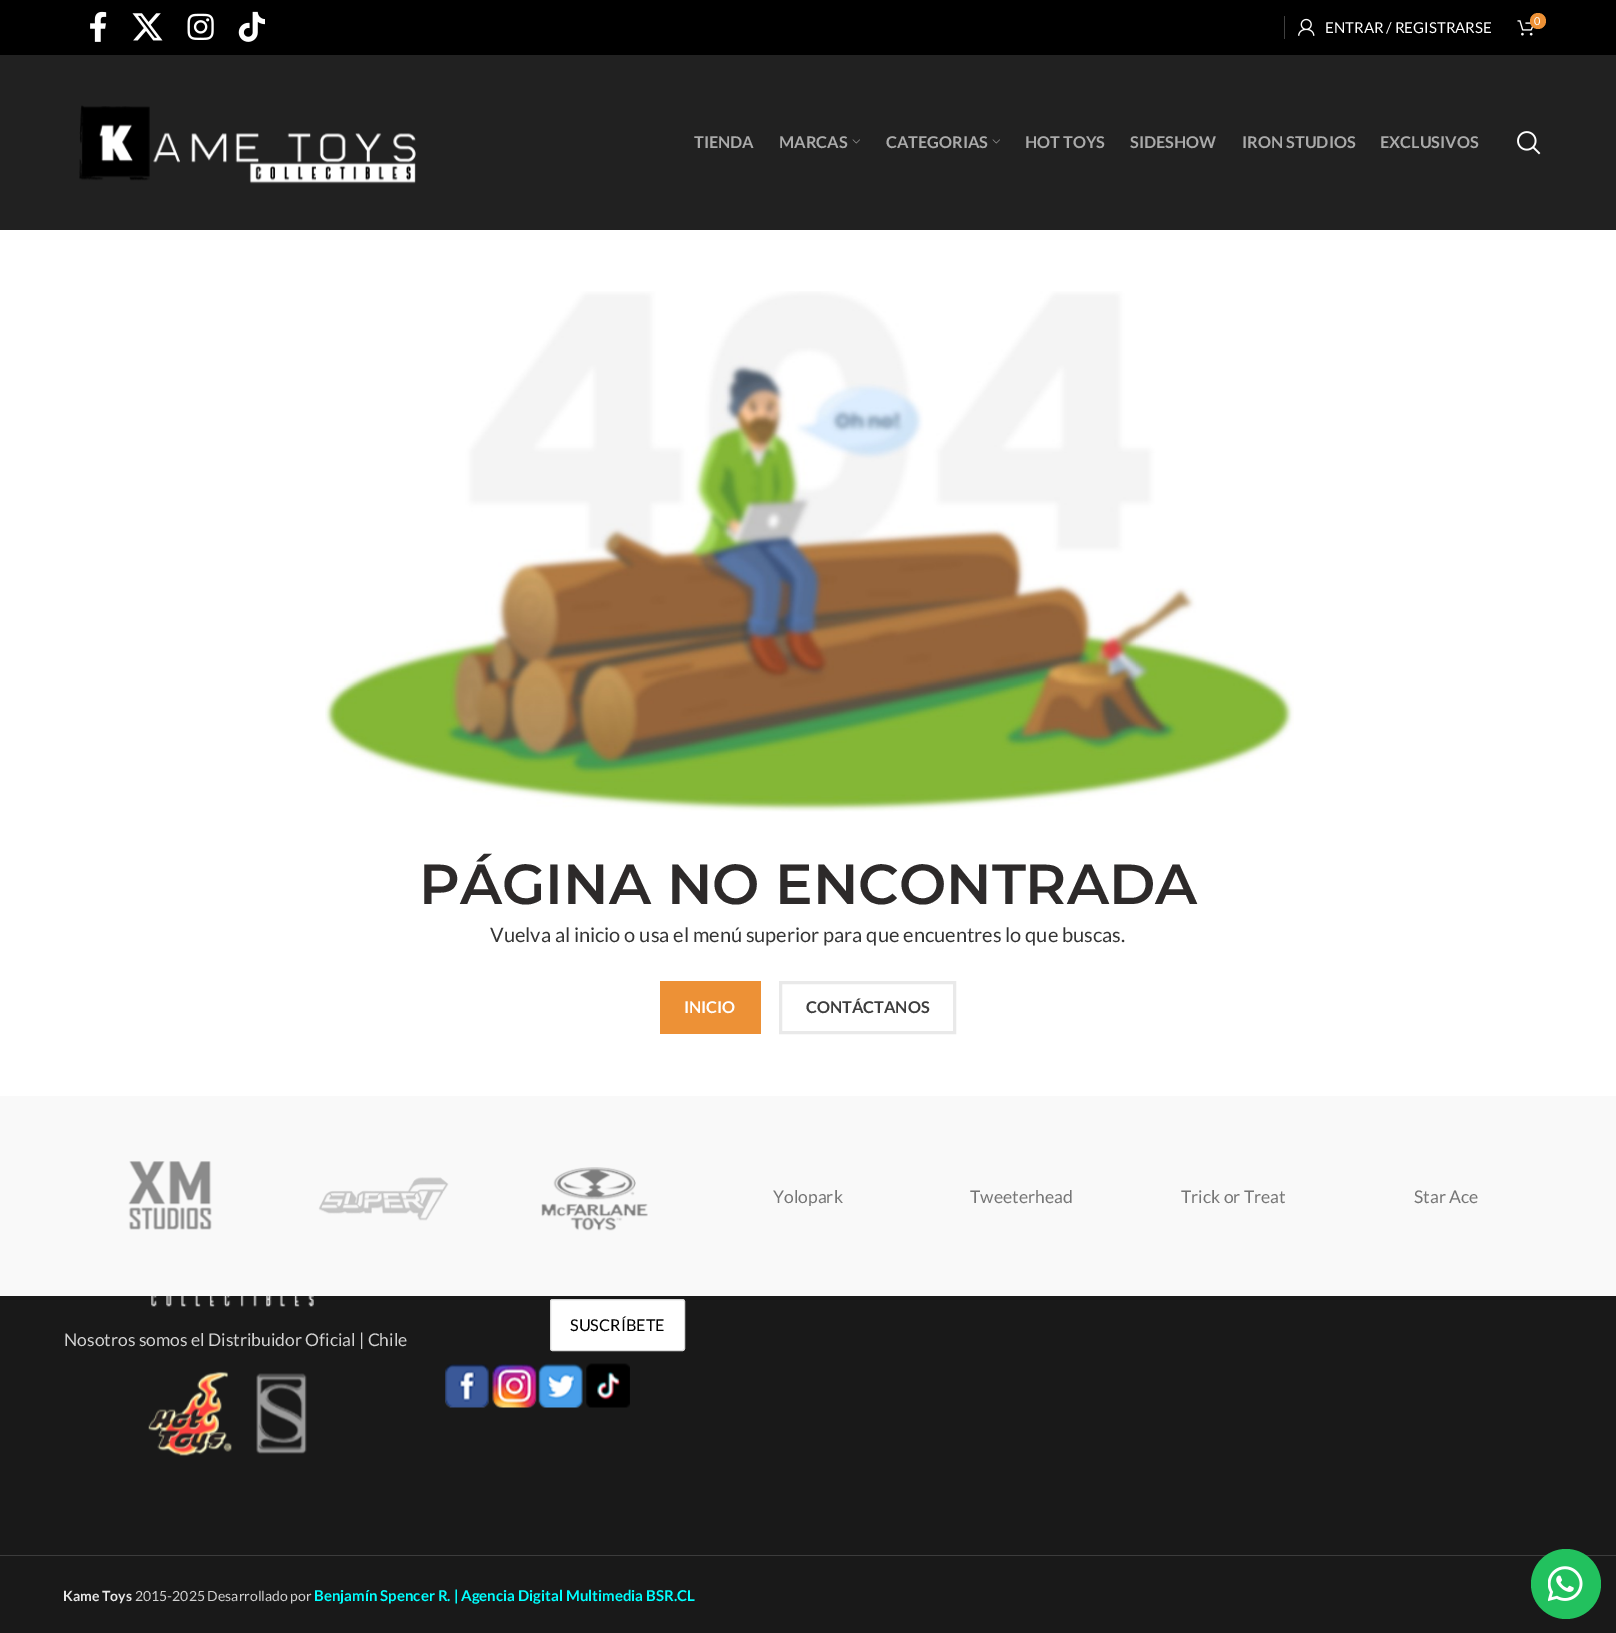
%!PS-Adobe-3.0
%%BoundingBox: 0 0 1616 1633
%%LanguageLevel: 3
%%Pages: 1
%%EndComments
%%BeginProlog
/setink { dup -16 bitshift 255 div exch dup -8 bitshift 255 and 255 div exch 255 and 255 div setrgbcolor } def
/usefont { [ exch dup neg 0 0 3 -1 roll 0 0 ] selectfont } def
/disc { newpath 0 360 arc closepath } def
/rrect { 5 dict begin { /r /h /w /y /x } { exch def } forall
  x r add y moveto x w add y 2 copy h add r arct x w add y h add x 1 index r arct
  x y h add x y r arct x y 2 copy exch w add exch r arct closepath end } def
/drawimage { 5 dict begin { /h /w /y /x /name } { exch def } forall
  gsave x y translate w h scale
  w h 8 [w 0 0 h 0 0] name (r) file false 3 colorimage grestore end } def
%%EndProlog
%%BeginSetup
<< /PageSize [1616 1633] >> setpagedevice
%%EndSetup
%%Page: 1 1
0 1633 translate 1 -1 scale
4 setmiterlimit
16#191919 setink
0 0 1616 1633 rectfill
16#000000 setink
0 0 1616 55 rectfill
(img1.raw) 90 11 17 31 drawimage
(img2.raw) 132 13 31 28 drawimage
(img3.raw) 187 13 27 27 drawimage
(img4.raw) 238 11 27 31 drawimage
16#404040 setink
1284 16 1 23 rectfill
(img5.raw) 1298 18 17 18 drawimage
/Lato-Regular 15 usefont
16#FFFFFF setink
1325 33 moveto (ENTRAR / REGISTRARSE) show
(img6.raw) 1517 20 16 16 drawimage
16#ED9136 setink
1538 21 8 disc fill
/Lato-Regular 11 usefont
16#FFFFFF setink
1534 25 moveto (0) show
16#212121 setink
0 55 1616 175 rectfill
(img7.raw) 79 105 337 79 drawimage
/Lato-Bold 16.25 usefont
16#AAAAAA setink
694 148 moveto (TIENDA) show
779 148 moveto (MARCAS) show
(img8.raw) 852 139 8 5 drawimage
886 148 moveto (CATEGORIAS) show
(img8.raw) 992 139 8 5 drawimage
[
    [(HOT TOYS) 1025 148]
    [(SIDESHOW) 1130 148]
    [(IRON STUDIOS) 1242 148]
    [(EXCLUSIVOS) 1380 148]
] { aload pop moveto show } forall
(img9.raw) 1517 131 24 24 drawimage
16#FFFFFF setink
0 230 1616 866 rectfill
(img10.raw) 325 291 969 521 drawimage
/Montserrat-SemiBold 56.25 usefont
16#2D2A2A setink
419 904 moveto (PÁGINA NO ENCONTRADA) show
/Lato-Regular 20 usefont
16#353535 setink
490 942 moveto (Vuelva al inicio o usa el menú superior para que encuentres lo que buscas.) show
16#ED9136 setink
660 981 101 53 rectfill
/Lato-Bold 16.25 usefont
16#FFFFFF setink
684 1013 moveto (INICIO) show
16#E9E9E9 setink
3 setlinewidth
780.5 982.5 174 50 rectstroke
16#3E3E3E setink
806 1013 moveto (CONTÁCTANOS) show
16#F9F9F9 setink
0 1096 1616 200 rectfill
(img11.raw) 128 1161 84 69 drawimage
(img12.raw) 318 1177 131 44 drawimage
(img13.raw) 541 1167 107 64 drawimage
/Lato-Regular 17.5 usefont
16#767676 setink
[
    [(Yolopark) 773 1203]
    [(Tweeterhead) 970 1203]
    [(Trick or Treat) 1181 1203]
    [(Star Ace) 1414 1203]
] { aload pop moveto show } forall
16#FFFFFF setink
550.5 1299.5 134 51 2 rrect gsave fill grestore
16#D9D9D9 setink
1 setlinewidth
stroke
/Lato-Regular 16.25 usefont
16#000000 setink
570 1331 moveto (SUSCRÍBETE) show
(img14.raw) 445 1364 44 44 drawimage
(img15.raw) 492 1364 45 44 drawimage
(img16.raw) 538 1363 45 45 drawimage
(img17.raw) 586 1363 44 45 drawimage
(img18.raw) 151 1296 163 11 drawimage
/Lato-Regular 17.5 usefont
16#D1D1D1 setink
64 1346 moveto (Nosotros somos el Distribuidor Oficial | Chile) show
(img19.raw) 148 1371 84 85 drawimage
(img20.raw) 256 1373 51 81 drawimage
16#3C3C3C setink
0 1555 1616 1 rectfill
/Lato-Bold 14 usefont
16#E8E8E8 setink
63 1601 moveto (Kame Toys) show
/Lato-Regular 14 usefont
16#D1D1D1 setink
135 1601 moveto (2015-2025 Desarrollado por) show
/Lato-Bold 15 usefont
16#00FFFF setink
314 1601 moveto (Benjamín Spencer R. | Agencia Digital Multimedia BSR.CL) show
16#22C15E setink
1566 1584 35 disc fill
(img21.raw) 1548 1566 35 36 drawimage
showpage
%%EOF
